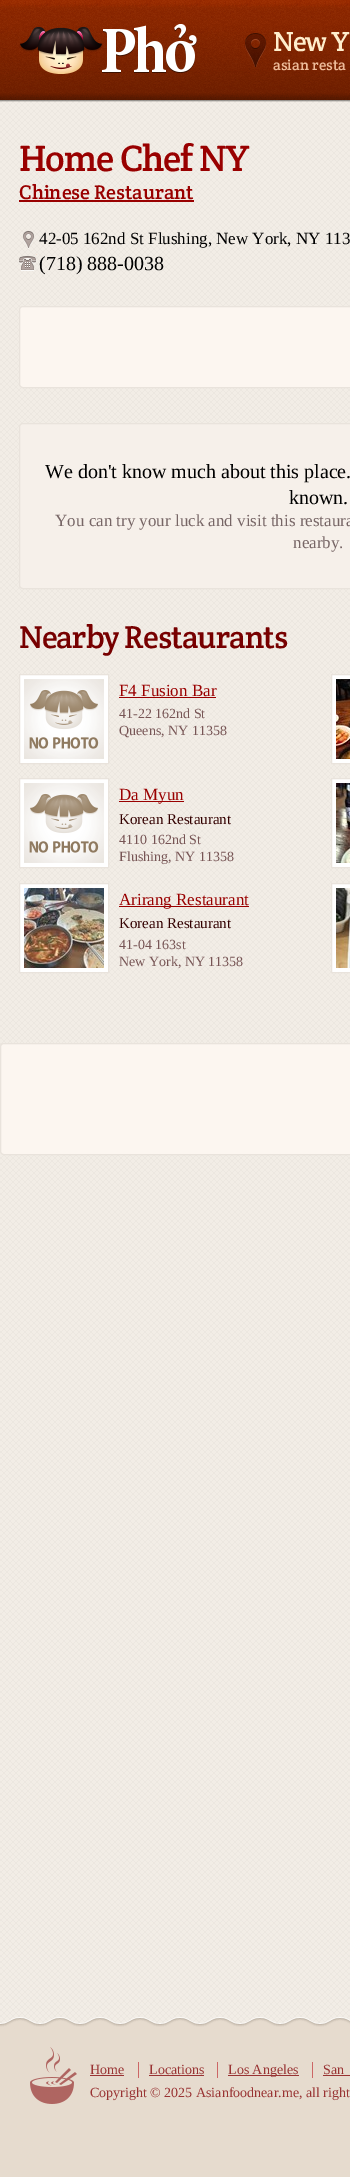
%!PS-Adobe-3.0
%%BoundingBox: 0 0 350 2177
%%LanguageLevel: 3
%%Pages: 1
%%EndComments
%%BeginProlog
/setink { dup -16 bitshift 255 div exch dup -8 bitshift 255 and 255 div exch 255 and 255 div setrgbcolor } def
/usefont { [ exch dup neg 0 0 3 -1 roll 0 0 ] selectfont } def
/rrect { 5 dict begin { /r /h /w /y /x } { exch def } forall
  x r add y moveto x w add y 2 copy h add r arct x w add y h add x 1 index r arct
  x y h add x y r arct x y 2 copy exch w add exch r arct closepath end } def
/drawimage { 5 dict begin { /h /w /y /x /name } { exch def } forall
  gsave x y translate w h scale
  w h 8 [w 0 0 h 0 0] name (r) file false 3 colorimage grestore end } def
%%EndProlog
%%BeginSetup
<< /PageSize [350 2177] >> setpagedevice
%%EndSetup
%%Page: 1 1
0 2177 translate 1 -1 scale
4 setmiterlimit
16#FFFFFF setink
0 0 350 2177 rectfill
(img1.raw) 0 100 350 1924 drawimage
(img2.raw) 0 0 350 100 drawimage
(img3.raw) 19 24 178 50 drawimage
(img4.raw) 245 33 21 34 drawimage
/CreteRound-Regular 28 usefont
16#FFEECC setink
273 51 moveto -1 0 (New Y) ashow
/CreteRound-Regular 15 usefont
16#EEBB99 setink
273 70 moveto (asian resta) show
(img5.raw) 0 100 350 2 drawimage
/CreteRound-Regular 37 usefont
16#990000 setink
19 171 moveto -1 0 (Home Chef NY) ashow
/CreteRound-Regular 20 usefont
19 199 moveto (Chinese Restaurant) show
19 200 175 2 rectfill
(img6.raw) 23 231 11 18 drawimage
/LiberationSerif-Regular 17 usefont
16#000000 setink
39 244 moveto (42-05 162nd St Flushing, New York, NY 113) show
(img7.raw) 19 254 18 17 drawimage
/LiberationSerif-Regular 20 usefont
39 270 moveto (\(718\) 888-0038) show
16#FCF6F0 setink
19.5 306.5 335 81 3.5 rrect gsave fill grestore
16#E9E3DC setink
stroke
16#F6F0EA setink
19.5 423.5 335 165 3.5 rrect gsave fill grestore
16#E9E3DC setink
stroke
16#000000 setink
45 478 moveto (We don't know much about this place.) show
289 504 moveto (known.) show
/LiberationSerif-Regular 17 usefont
16#776666 setink
55 526 moveto (You can try your luck and visit this restaura) show
293 548 moveto (nearby.) show
/CreteRound-Regular 32 usefont
16#770000 setink
19 648 moveto -1 0 (Nearby Restaurants) ashow
16#FFFFFF setink
19.5 674.5 moveto 108.5 674.5 lineto 108.5 763.5 lineto 19.5 763.5 lineto closepath gsave fill grestore
16#E9E3DC setink
stroke
(img8.raw) 24 679 80 80 drawimage
/LiberationSerif-Regular 17 usefont
16#990000 setink
119 696 moveto (F4 Fusion Bar) show
119 697 97 1 rectfill
/LiberationSerif-Regular 14 usefont
16#775555 setink
119 718 moveto (41-22 162nd St) show
119 735 moveto (Queens, NY 11358) show
16#FFFFFF setink
331.5 674.5 moveto 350.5 674.5 lineto 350.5 763.5 lineto 331.5 763.5 lineto closepath gsave fill grestore
16#E9E3DC setink
stroke
(img9.raw) 336 679 14 80 drawimage
16#FFFFFF setink
19.5 778.5 moveto 108.5 778.5 lineto 108.5 867.5 lineto 19.5 867.5 lineto closepath gsave fill grestore
16#E9E3DC setink
stroke
(img8.raw) 24 783 80 80 drawimage
16#990000 setink
119 801 65 1 rectfill
/LiberationSerif-Regular 17 usefont
119 800 moveto (Da Myun) show
/LiberationSerif-Regular 15 usefont
16#330000 setink
119 824 moveto (Korean Restaurant) show
/LiberationSerif-Regular 14 usefont
16#775555 setink
119 844 moveto (4110 162nd St) show
119 861 moveto (Flushing, NY 11358) show
16#FFFFFF setink
331.5 778.5 moveto 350.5 778.5 lineto 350.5 867.5 lineto 331.5 867.5 lineto closepath gsave fill grestore
16#E9E3DC setink
stroke
(img10.raw) 336 783 14 80 drawimage
16#FFFFFF setink
19.5 883.5 moveto 108.5 883.5 lineto 108.5 972.5 lineto 19.5 972.5 lineto closepath gsave fill grestore
16#E9E3DC setink
stroke
(img11.raw) 24 888 80 80 drawimage
16#990000 setink
119 906 130 1 rectfill
/LiberationSerif-Regular 17 usefont
119 905 moveto (Arirang Restaurant) show
/LiberationSerif-Regular 15 usefont
16#330000 setink
119 928 moveto (Korean Restaurant) show
/LiberationSerif-Regular 14 usefont
16#775555 setink
119 949 moveto (41-04 163st) show
119 966 moveto (New York, NY 11358) show
16#FFFFFF setink
331.5 883.5 moveto 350.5 883.5 lineto 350.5 972.5 lineto 331.5 972.5 lineto closepath gsave fill grestore
16#E9E3DC setink
stroke
(img12.raw) 336 888 14 80 drawimage
16#FCF6F0 setink
0.5 1043.5 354 111 3.5 rrect gsave fill grestore
16#E9E3DC setink
stroke
16#E6DBCE setink
0 2027 350 150 rectfill
(img13.raw) 0 2017 350 10 drawimage
(img14.raw) 30 2047 47 57 drawimage
16#993333 setink
90 2074 moveto (Home) show
90 2075 34 1 rectfill
16#CC6666 setink
138 2062 1 16 rectfill
16#993333 setink
149 2074 moveto (Locations) show
[
    [149 2075 55 1 16#993333]
    [217 2062 1 16 16#CC6666]
    [228 2075 71 1 16#993333]
] { aload pop setink rectfill } forall
228 2074 moveto (Los Angeles) show
16#CC6666 setink
312 2062 1 16 rectfill
16#993333 setink
323 2074 moveto (San) show
323 2075 27 1 rectfill
90 2097 moveto (Copyright © 2025 Asianfoodnear.me, all right) show
showpage
%%EOF
